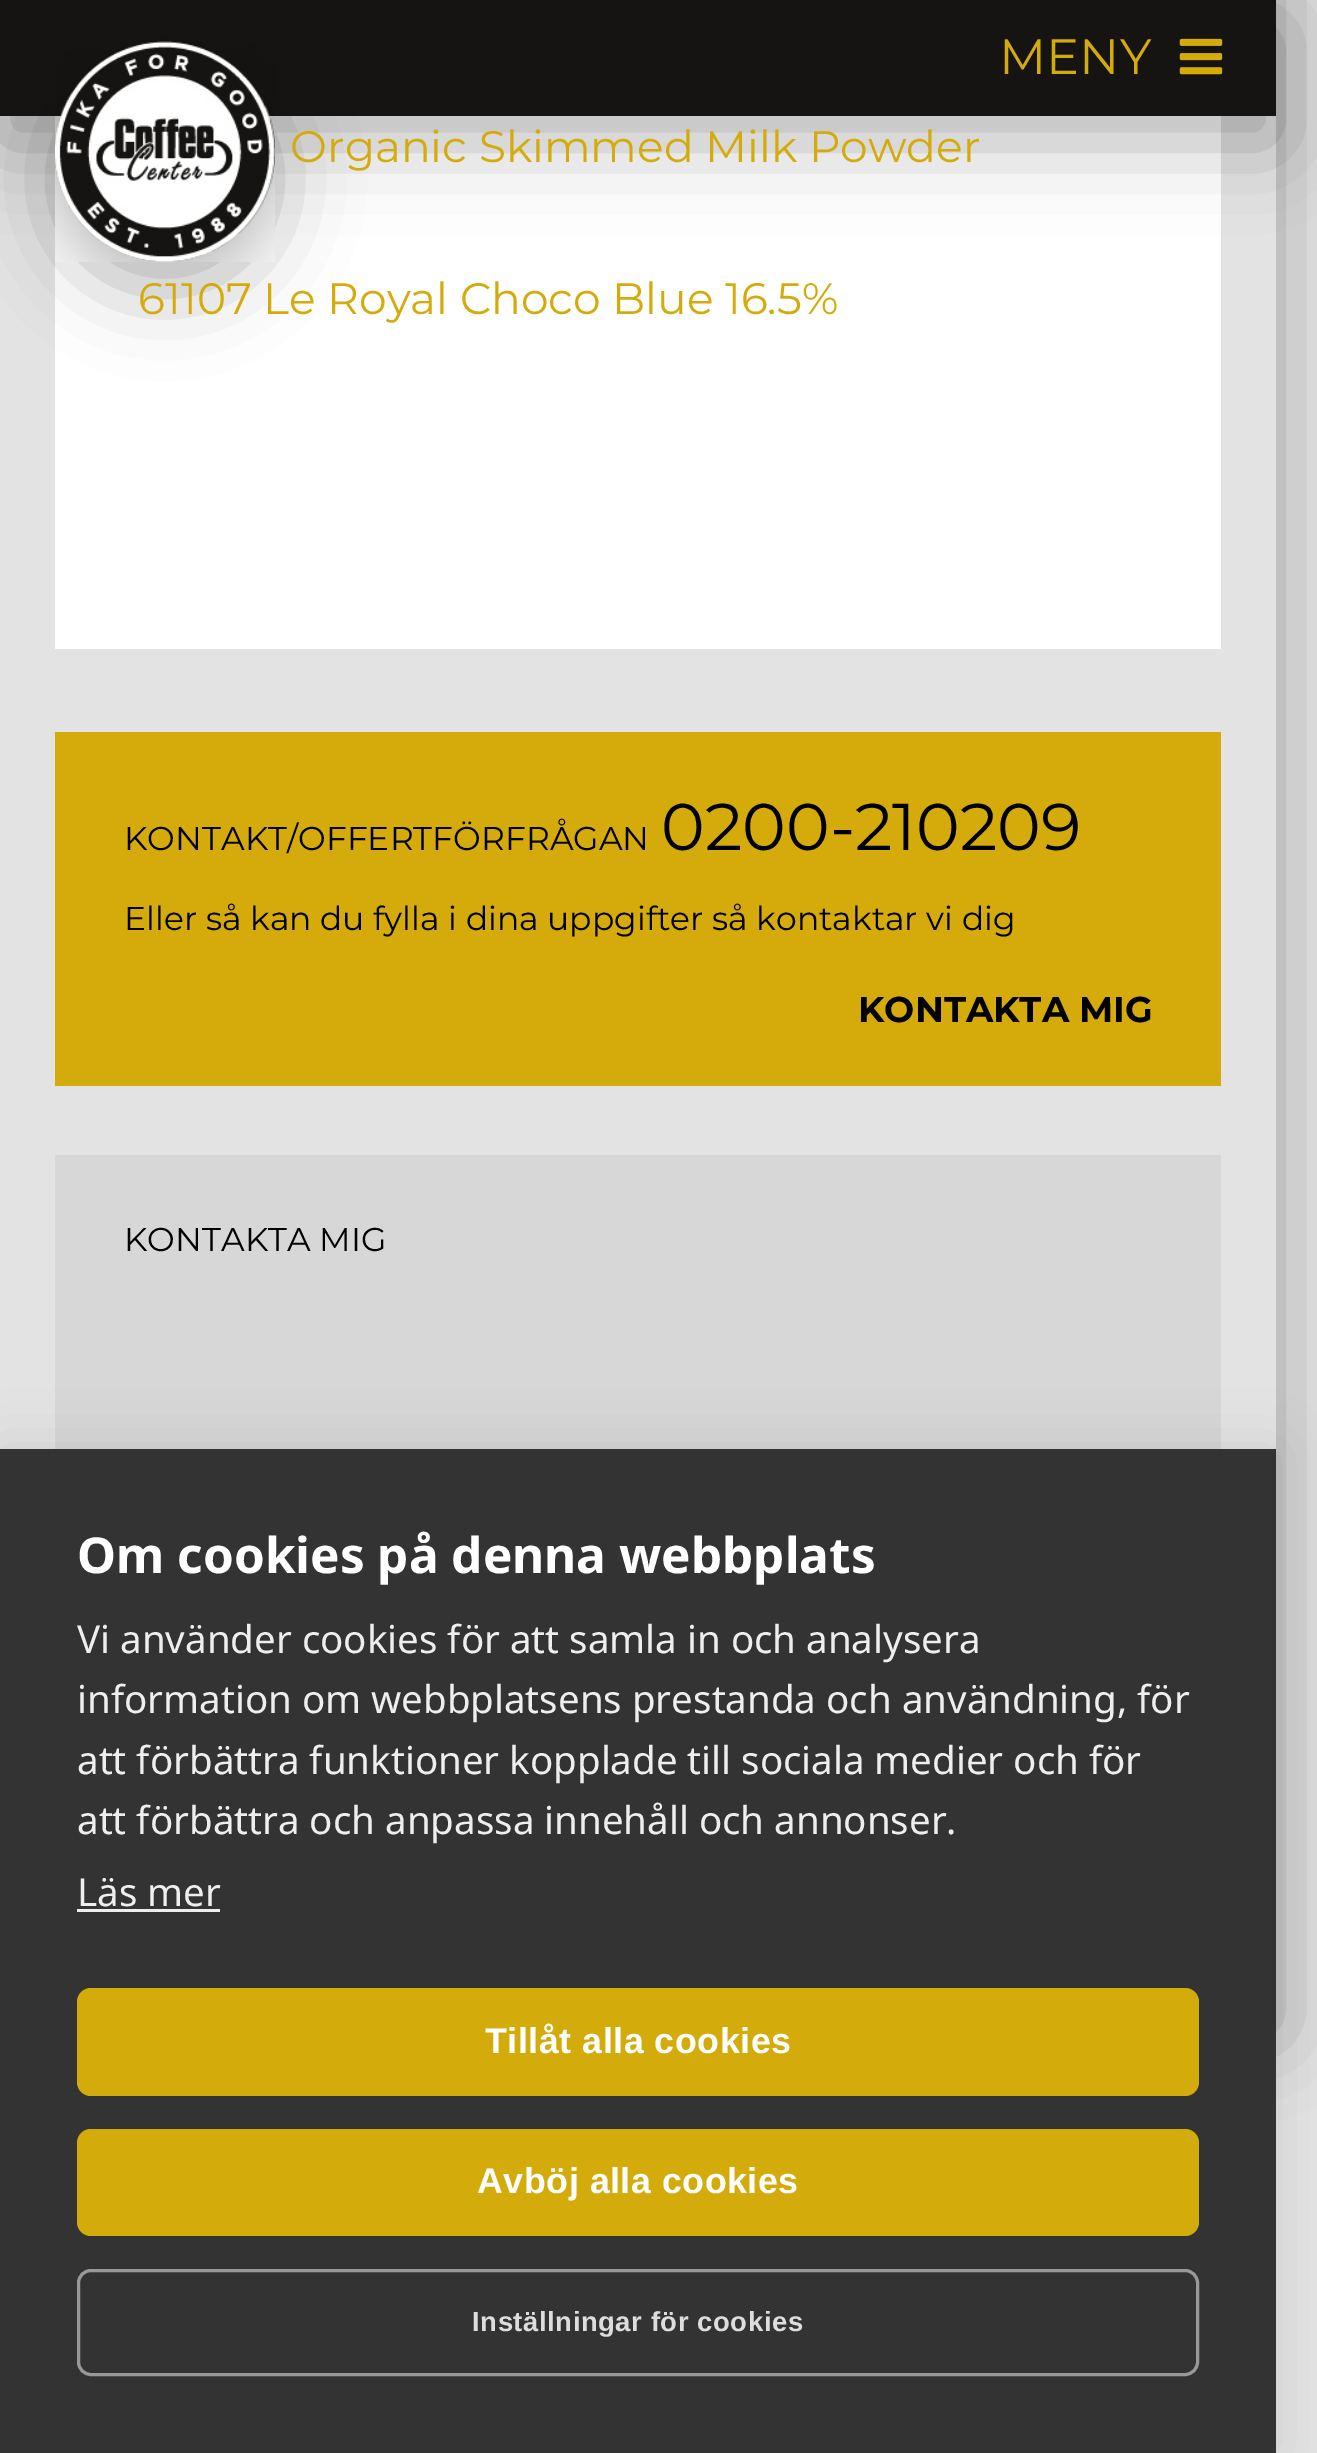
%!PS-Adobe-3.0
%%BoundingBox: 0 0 1317 2453
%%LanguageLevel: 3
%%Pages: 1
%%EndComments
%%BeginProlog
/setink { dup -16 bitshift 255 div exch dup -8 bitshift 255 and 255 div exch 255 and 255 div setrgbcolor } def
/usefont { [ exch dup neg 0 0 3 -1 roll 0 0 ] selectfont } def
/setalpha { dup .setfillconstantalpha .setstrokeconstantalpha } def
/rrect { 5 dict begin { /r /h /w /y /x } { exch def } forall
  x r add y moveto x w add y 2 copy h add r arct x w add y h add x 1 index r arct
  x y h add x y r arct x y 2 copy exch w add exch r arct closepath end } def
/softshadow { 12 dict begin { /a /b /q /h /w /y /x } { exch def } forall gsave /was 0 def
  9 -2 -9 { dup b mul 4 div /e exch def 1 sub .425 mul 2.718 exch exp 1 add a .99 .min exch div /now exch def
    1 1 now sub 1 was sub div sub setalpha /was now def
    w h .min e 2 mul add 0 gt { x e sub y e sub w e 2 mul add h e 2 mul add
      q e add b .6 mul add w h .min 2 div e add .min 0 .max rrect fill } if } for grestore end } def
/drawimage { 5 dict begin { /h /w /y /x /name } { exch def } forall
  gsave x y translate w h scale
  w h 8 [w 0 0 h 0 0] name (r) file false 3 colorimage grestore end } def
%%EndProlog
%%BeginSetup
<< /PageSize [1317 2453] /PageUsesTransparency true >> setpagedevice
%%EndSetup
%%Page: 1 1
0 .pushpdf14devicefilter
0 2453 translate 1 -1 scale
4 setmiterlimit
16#E3E3E3 setink
0 0 1317 2453 rectfill
16#000000 setink
0 -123 1276 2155 0 41 0.3 softshadow
16#E3E3E3 setink
0 116 1276 1333 rectfill
16#FFFFFF setink
55 116 1166 533 rectfill
16#000000 setink
0 28 1276 115 0 41 0.3 softshadow
16#161412 setink
0 0 1276 116 rectfill
16#000000 setink
55 69 220 220 110 41 0.3 softshadow
(img1.raw) 55 41 220 221 drawimage
/Montserrat-Regular 49.5 usefont
16#D4AB0A setink
999 74 moveto (MENY) show
(img2.raw) 1179 38 44 37 drawimage
/Montserrat-Regular 44 usefont
290 162 moveto (Organic Skimmed Milk Powder) show
138 314 moveto (61107 Le Royal Choco Blue 16.5%) show
55 732 1166 354 rectfill
/Montserrat-Regular 33 usefont
16#000000 setink
124 850 moveto (KONTAKT/OFFERTFÖRFRÅGAN) show
/Montserrat-Regular 66 usefont
661 850 moveto (0200-210209) show
/Montserrat-Regular 33 usefont
124 930 moveto (Eller så kan du fylla i dina uppgifter så kontaktar vi dig) show
/Montserrat-Bold 35.75 usefont
858 1022 moveto (KONTAKTA MIG) show
16#D7D7D7 setink
55 1155 1166 294 rectfill
/Montserrat-Regular 33 usefont
16#000000 setink
124 1251 moveto (KONTAKTA MIG) show
0 1449 1276 1004 0 27.5 0.1 softshadow
16#333333 setink
0 1449 1276 1004 rectfill
/NotoSans-Bold 49.5 usefont
16#FFFFFF setink
77 1573 moveto (Om cookies på denna webbplats) show
/NotoSans-Regular 38.5 usefont
16#EEEEEE setink
[
    [(Vi använder cookies för att samla in och analysera) 77 1653]
    [(information om webbplatsens prestanda och användning, för) 77 1713]
    [(att förbättra funktioner kopplade till sociala medier och för) 77 1774]
    [(att förbättra och anpassa innehåll och annonser.) 77 1834]
    [(Läs mer) 77 1906]
] { aload pop moveto show } forall
77 1909 143 3 rectfill
16#D3AB0A setink
77 1988 1122 108 14 rrect fill
/LiberationSans-Bold 35.75 usefont
16#FFFFFF setink
485 2053 moveto 0.55 0 (Tillåt alla cookies) ashow
16#D3AB0A setink
77 2129 1122 107 14 rrect fill
16#FFFFFF setink
477 2193 moveto 0.55 0 (Avböj alla cookies) ashow
16#999999 setink
3 setlinewidth
78.5 2270.5 1119 104 12.5 rrect stroke
/LiberationSans-Bold 27.5 usefont
16#DDDDDD setink
472 2331 moveto 0.55 0 (Inställningar för cookies) ashow
.poppdf14devicefilter showpage
%%EOF
